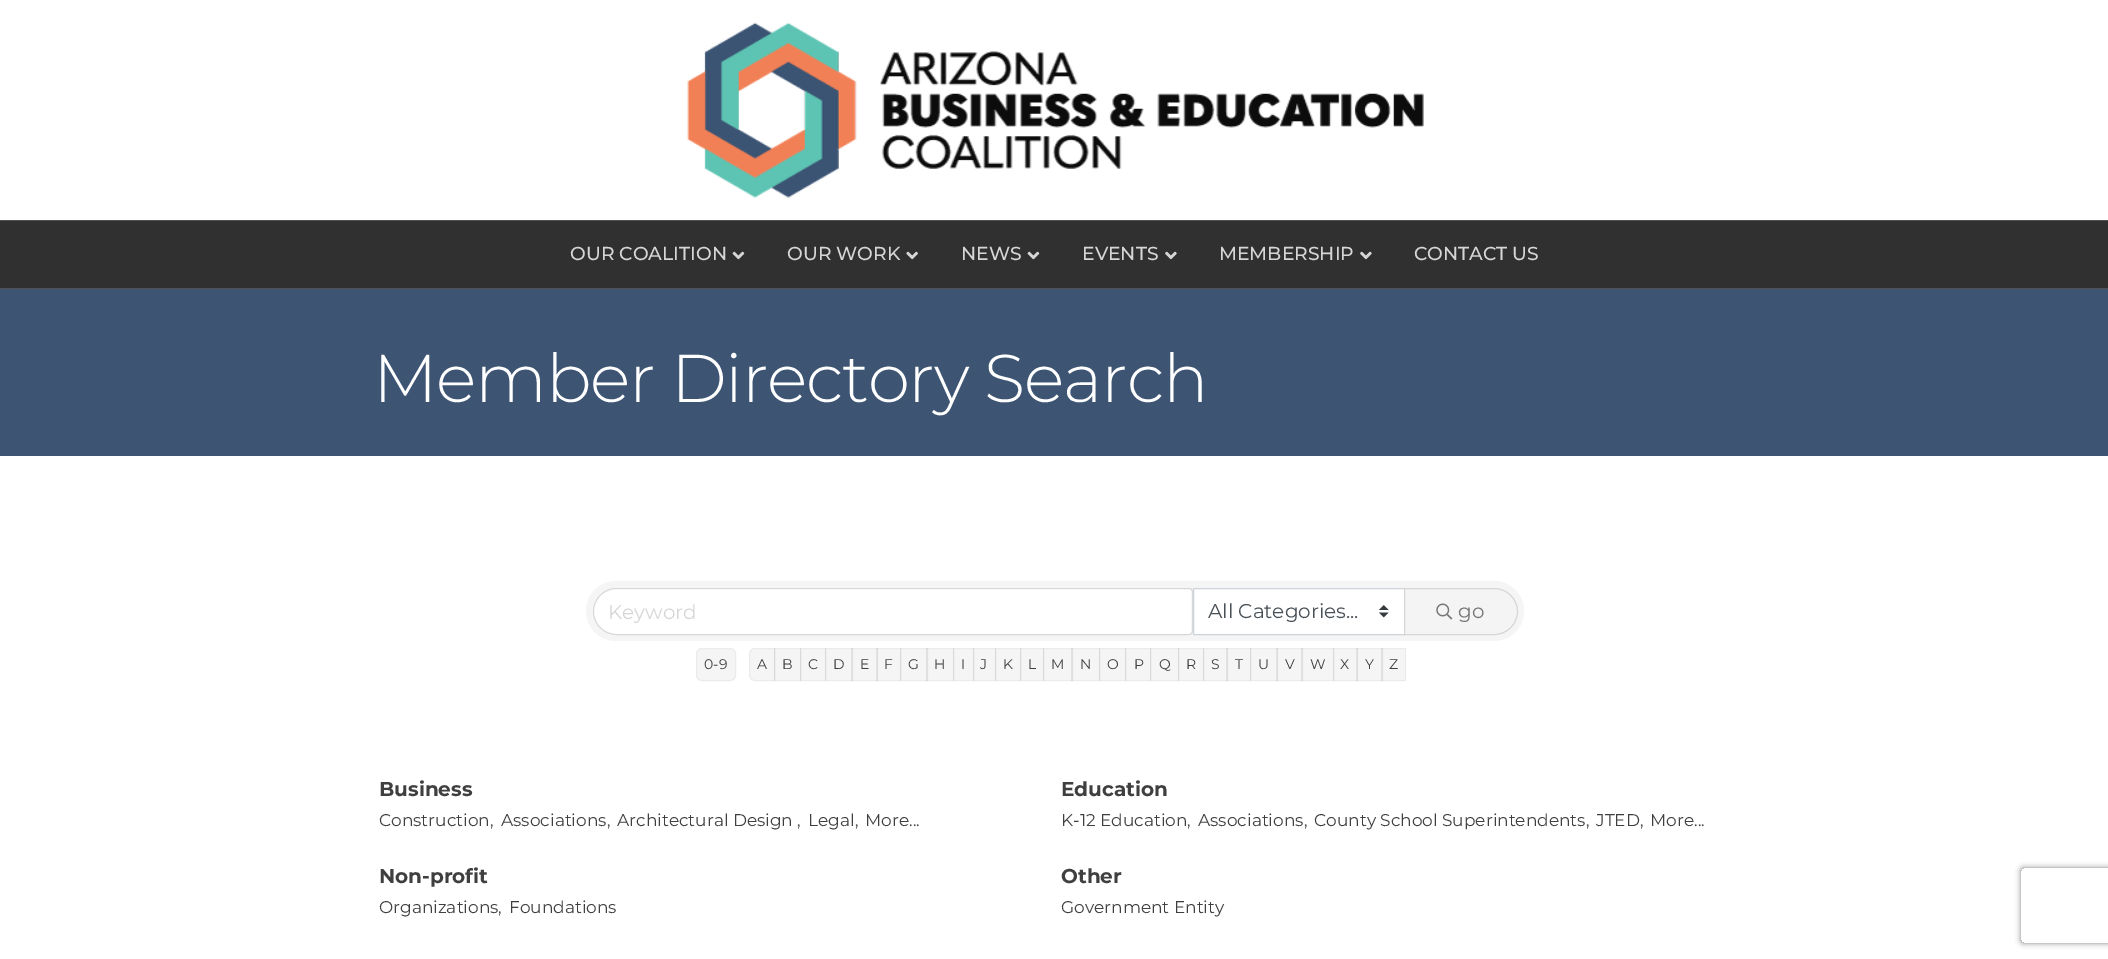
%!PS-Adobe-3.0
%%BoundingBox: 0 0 2108 959
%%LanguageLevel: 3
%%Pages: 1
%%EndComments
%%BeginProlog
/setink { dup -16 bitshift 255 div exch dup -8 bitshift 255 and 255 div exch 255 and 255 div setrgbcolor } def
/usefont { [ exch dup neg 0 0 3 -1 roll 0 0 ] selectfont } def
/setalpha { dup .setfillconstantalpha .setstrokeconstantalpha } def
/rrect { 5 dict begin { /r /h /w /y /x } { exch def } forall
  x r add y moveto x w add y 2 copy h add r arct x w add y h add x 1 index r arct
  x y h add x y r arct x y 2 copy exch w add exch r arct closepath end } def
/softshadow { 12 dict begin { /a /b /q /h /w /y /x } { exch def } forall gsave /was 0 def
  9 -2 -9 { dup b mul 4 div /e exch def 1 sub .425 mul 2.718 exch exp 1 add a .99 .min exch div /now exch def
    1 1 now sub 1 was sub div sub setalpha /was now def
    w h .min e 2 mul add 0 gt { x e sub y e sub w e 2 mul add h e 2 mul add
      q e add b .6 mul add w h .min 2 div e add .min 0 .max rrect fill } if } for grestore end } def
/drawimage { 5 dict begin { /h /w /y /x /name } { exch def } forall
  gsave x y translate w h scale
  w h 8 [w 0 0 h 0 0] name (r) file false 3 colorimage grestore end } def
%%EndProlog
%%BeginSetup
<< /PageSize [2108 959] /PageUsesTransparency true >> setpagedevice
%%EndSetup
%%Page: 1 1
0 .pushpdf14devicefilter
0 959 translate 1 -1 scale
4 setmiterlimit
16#FFFFFF setink
0 0 2108 959 rectfill
(img1.raw) 687 22 737 176 drawimage
[
    [0 221 2108 67 16#303030]
    [0 220 2108 1 16#515151]
    [0 288 2108 1 16#515151]
] { aload pop setink rectfill } forall
/Montserrat-Medium 18.75 usefont
16#D6D6D6 setink
570 260 moveto (OUR COALITION) show
(img2.raw) 732 251 13 9 drawimage
787 260 moveto (OUR WORK) show
(img3.raw) 906 251 12 9 drawimage
961 260 moveto (NEWS) show
(img2.raw) 1027 251 13 9 drawimage
1082 260 moveto (EVENTS) show
(img4.raw) 1165 251 12 9 drawimage
1219 260 moveto (MEMBERSHIP) show
(img4.raw) 1360 251 12 9 drawimage
1414 260 moveto (CONTACT US) show
16#3D5473 setink
0 289 2108 167 rectfill
/Montserrat-Light 67.5 usefont
16#FFFFFF setink
373 402 moveto -1.25 0 (Member Directory Search) ashow
16#F5F5F5 setink
586 581 938 60 30 rrect fill
16#FFFFFF setink
616.5 589 moveto 1188.5 589 lineto 1190 589 1191 590 1191 591.5 curveto 1191 631.5 lineto 1191 633 1190 634 1188.5 634 curveto 616.5 634 lineto 604 634 594 624 594 611.5 curveto 594 599 604 589 616.5 589 curveto closepath fill
0.12 setalpha
16#000000 setink
616.5 588.5 moveto 1189 588.5 lineto 1191 588.5 1192.5 590 1192.5 592 curveto 1192.5 631 lineto 1192.5 633 1191 634.5 1189 634.5 curveto 616.5 634.5 lineto 604 634.5 593.5 624 593.5 611.5 curveto 593.5 599 604 588.5 616.5 588.5 curveto closepath stroke
/Montserrat-Regular 20 usefont
1 setalpha
16#D6D6D6 setink
608 619 moveto (Keyword) show
16#FFFFFF setink
1194 589 210 45 rectfill
(img5.raw) 1379 605 10 13 drawimage
16#CED4DA setink
1193.5 588.5 211 46 rectstroke
16#495057 setink
1208 618 moveto (All Categories...) show
16#F4F4F4 setink
1404.5 588.5 moveto 1494.5 588.5 lineto 1507 588.5 1517.5 599 1517.5 611.5 curveto 1517.5 624 1507 634.5 1494.5 634.5 curveto 1404.5 634.5 lineto closepath gsave fill grestore
16#D6D6D6 setink
stroke
(img6.raw) 1436 603 17 17 drawimage
16#777777 setink
1458 618 moveto (go) show
16#F5F5F5 setink
696.5 648.5 39 32 5.5 rrect gsave fill grestore
16#EBEBEB setink
stroke
/Montserrat-Regular 14 usefont
16#3F3F3F setink
704 669 moveto (0-9) show
16#F5F5F5 setink
755 648.5 moveto 774.5 648.5 lineto 774.5 680.5 lineto 755 680.5 lineto 752 680.5 749.5 678 749.5 675 curveto 749.5 654 lineto 749.5 651 752 648.5 755 648.5 curveto closepath gsave fill grestore
16#EBEBEB setink
stroke
16#3F3F3F setink
757 669 moveto (A) show
0.04 setalpha
16#000000 setink
774 648 27 33 rectfill
774.5 648.5 26 32 rectstroke
1 setalpha
16#3F3F3F setink
782 669 moveto (B) show
0.04 setalpha
16#000000 setink
800 648 26 33 rectfill
800.5 648.5 25 32 rectstroke
1 setalpha
16#3F3F3F setink
808 669 moveto (C) show
0.04 setalpha
16#000000 setink
825 648 28 33 rectfill
825.5 648.5 27 32 rectstroke
1 setalpha
16#3F3F3F setink
833 669 moveto (D) show
0.04 setalpha
16#000000 setink
851 648 27 33 rectfill
851.5 648.5 26 32 rectstroke
1 setalpha
16#3F3F3F setink
860 669 moveto (E) show
0.04 setalpha
16#000000 setink
876 648 25 33 rectfill
876.5 648.5 24 32 rectstroke
1 setalpha
16#3F3F3F setink
884 669 moveto (F) show
0.04 setalpha
16#000000 setink
900 648 28 33 rectfill
900.5 648.5 27 32 rectstroke
1 setalpha
16#3F3F3F setink
908 669 moveto (G) show
0.04 setalpha
16#000000 setink
926 648 28 33 rectfill
926.5 648.5 27 32 rectstroke
1 setalpha
16#3F3F3F setink
934 669 moveto (H) show
0.04 setalpha
16#000000 setink
953 648 21 33 rectfill
953.5 648.5 20 32 rectstroke
1 setalpha
16#3F3F3F setink
961 669 moveto (I) show
0.04 setalpha
16#000000 setink
973 648 23 33 rectfill
973.5 648.5 22 32 rectstroke
1 setalpha
16#3F3F3F setink
980 669 moveto (J) show
0.04 setalpha
16#000000 setink
995 648 26 33 rectfill
995.5 648.5 25 32 rectstroke
1 setalpha
16#3F3F3F setink
1003 669 moveto (K) show
0.04 setalpha
16#000000 setink
1020 648 24 33 rectfill
1020.5 648.5 23 32 rectstroke
1 setalpha
16#3F3F3F setink
1028 669 moveto (L) show
0.04 setalpha
16#000000 setink
1043 648 30 33 rectfill
1043.5 648.5 29 32 rectstroke
1 setalpha
16#3F3F3F setink
1051 669 moveto (M) show
0.04 setalpha
16#000000 setink
1071 648 29 33 rectfill
1071.5 648.5 28 32 rectstroke
1 setalpha
16#3F3F3F setink
1080 669 moveto (N) show
0.04 setalpha
16#000000 setink
1099 648 27 33 rectfill
1099.5 648.5 26 32 rectstroke
1 setalpha
16#3F3F3F setink
1107 669 moveto (O) show
0.04 setalpha
16#000000 setink
1125 648 26 33 rectfill
1125.5 648.5 25 32 rectstroke
1 setalpha
16#3F3F3F setink
1134 669 moveto (P) show
0.04 setalpha
16#000000 setink
1150 648 29 33 rectfill
1150.5 648.5 28 32 rectstroke
1 setalpha
16#3F3F3F setink
1159 669 moveto (Q) show
0.04 setalpha
16#000000 setink
1178 648 26 33 rectfill
1178.5 648.5 25 32 rectstroke
1 setalpha
16#3F3F3F setink
1186 669 moveto (R) show
0.04 setalpha
16#000000 setink
1203 648 25 33 rectfill
1203.5 648.5 24 32 rectstroke
1 setalpha
16#3F3F3F setink
1211 669 moveto (S) show
0.04 setalpha
16#000000 setink
1226 648 25 33 rectfill
1226.5 648.5 24 32 rectstroke
1 setalpha
16#3F3F3F setink
1235 669 moveto (T) show
0.04 setalpha
16#000000 setink
1250 648 28 33 rectfill
1250.5 648.5 27 32 rectstroke
1 setalpha
16#3F3F3F setink
1258 669 moveto (U) show
0.04 setalpha
16#000000 setink
1276 648 27 33 rectfill
1276.5 648.5 26 32 rectstroke
1 setalpha
16#3F3F3F setink
1285 669 moveto (V) show
0.04 setalpha
16#000000 setink
1301 648 33 33 rectfill
1301.5 648.5 32 32 rectstroke
1 setalpha
16#3F3F3F setink
1310 669 moveto (W) show
0.04 setalpha
16#000000 setink
1333 648 25 33 rectfill
1333.5 648.5 24 32 rectstroke
1 setalpha
16#3F3F3F setink
1340 669 moveto (X) show
0.04 setalpha
16#000000 setink
1356 648 27 33 rectfill
1356.5 648.5 26 32 rectstroke
1 setalpha
16#3F3F3F setink
1365 669 moveto (Y) show
0.04 setalpha
16#000000 setink
1381 648 25 33 rectfill
1381.5 648.5 24 32 rectstroke
1 setalpha
16#3F3F3F setink
1389 669 moveto (Z) show
/Montserrat-Bold 20 usefont
379 796 moveto (Business) show
/Montserrat-Regular 17 usefont
[
    [(Construction,) 379 826]
    [(Associations,) 501 826]
    [(Architectural Design ,) 617 826]
    [(Legal,) 808 826]
    [(More...) 865 826]
] { aload pop moveto show } forall
/Montserrat-Bold 20 usefont
1061 796 moveto (Education) show
/Montserrat-Regular 17 usefont
[
    [(K-12 Education,) 1061 826]
    [(Associations,) 1198 826]
    [(County School Superintendents,) 1314 826]
    [(JTED,) 1596 826]
    [(More...) 1650 826]
] { aload pop moveto show } forall
/Montserrat-Bold 20 usefont
379 883 moveto (Non-profit) show
/Montserrat-Regular 17 usefont
379 913 moveto (Organizations,) show
509 913 moveto (Foundations) show
/Montserrat-Bold 20 usefont
1061 883 moveto (Other) show
/Montserrat-Regular 17 usefont
1061 913 moveto (Government Entity) show
gsave
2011 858 moveto 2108 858 lineto 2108 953 lineto 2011 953 lineto closepath 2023.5 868 moveto 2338.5 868 lineto 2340 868 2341 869 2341 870.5 curveto 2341 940.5 lineto 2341 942 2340 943 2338.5 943 curveto 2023.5 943 lineto 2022 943 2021 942 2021 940.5 curveto 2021 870.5 lineto 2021 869 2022 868 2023.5 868 curveto closepath eoclip newpath
16#808080 setink
2021 868 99 75 2.5 3 1 softshadow
grestore
.poppdf14devicefilter showpage
%%EOF
